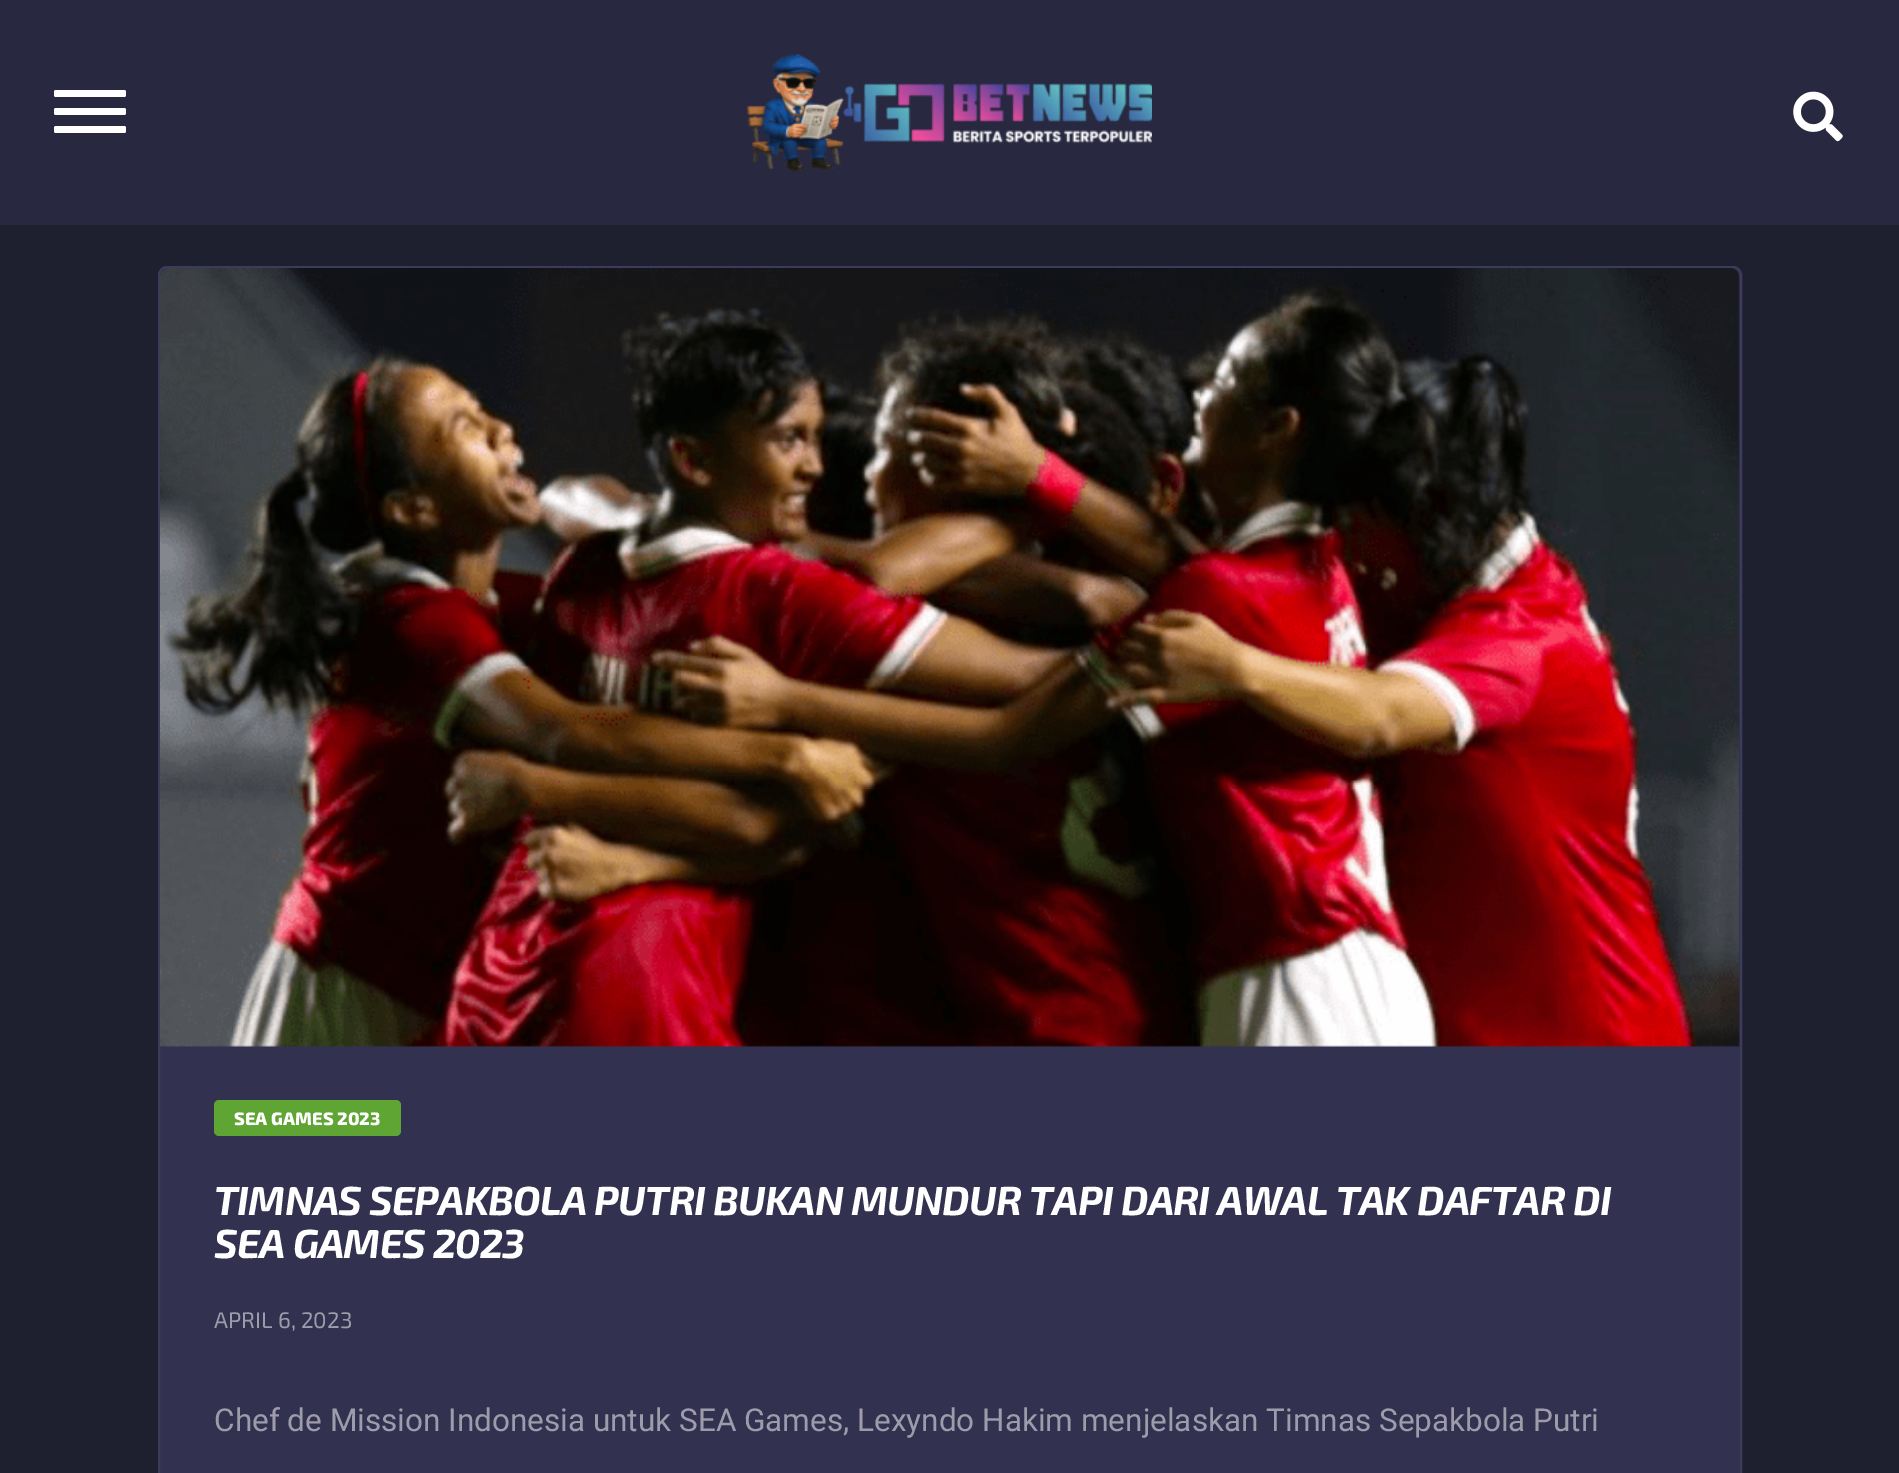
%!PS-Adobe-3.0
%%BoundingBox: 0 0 1899 1473
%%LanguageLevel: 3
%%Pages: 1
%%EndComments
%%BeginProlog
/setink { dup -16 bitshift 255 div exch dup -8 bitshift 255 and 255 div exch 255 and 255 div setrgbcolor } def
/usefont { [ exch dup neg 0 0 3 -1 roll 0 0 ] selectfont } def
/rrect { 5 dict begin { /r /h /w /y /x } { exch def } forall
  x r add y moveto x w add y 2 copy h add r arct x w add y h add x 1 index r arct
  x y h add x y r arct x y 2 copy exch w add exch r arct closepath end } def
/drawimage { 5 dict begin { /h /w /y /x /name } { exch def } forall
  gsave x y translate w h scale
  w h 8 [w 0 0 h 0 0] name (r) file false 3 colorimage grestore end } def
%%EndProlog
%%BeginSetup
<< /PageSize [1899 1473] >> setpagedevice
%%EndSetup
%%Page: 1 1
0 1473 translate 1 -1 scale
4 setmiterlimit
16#1E202F setink
0 0 1899 1473 rectfill
16#282840 setink
0 0 1899 225 rectfill
(img1.raw) 747 54 405 118 drawimage
16#FFFFFF setink
54 90 72 7 2 rrect fill
54 108 72 7 2 rrect fill
54 126 72 7 2 rrect fill
(img2.raw) 1793 91 50 51 drawimage
16#323150 setink
159 267 1582 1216 8 rrect gsave fill grestore
16#3C3B5B setink
2 setlinewidth
stroke
(img3.raw) 160 268 1580 779 drawimage
16#5FA533 setink
214 1100 187 36 5 rrect fill
/Exo2-ExtraBold 18 usefont
16#FFFFFF setink
234 1125 moveto (SEA GAMES 2023) show
/Exo2-BoldItalic 40.5 usefont
214 1215 moveto -0.8 0 (TIMNAS SEPAKBOLA PUTRI BUKAN MUNDUR TAPI DARI AWAL TAK DAFTAR DI) ashow
214 1258 moveto -0.8 0 (SEA GAMES 2023) ashow
/Exo2-Regular 22.5 usefont
16#9E9CAA setink
214 1328 moveto (APRIL 6, 2023) show
/Roboto-Regular 31.5 usefont
214 1431 moveto (Chef de Mission Indonesia untuk SEA Games, Lexyndo Hakim menjelaskan Timnas Sepakbola Putri) show
showpage
%%EOF
